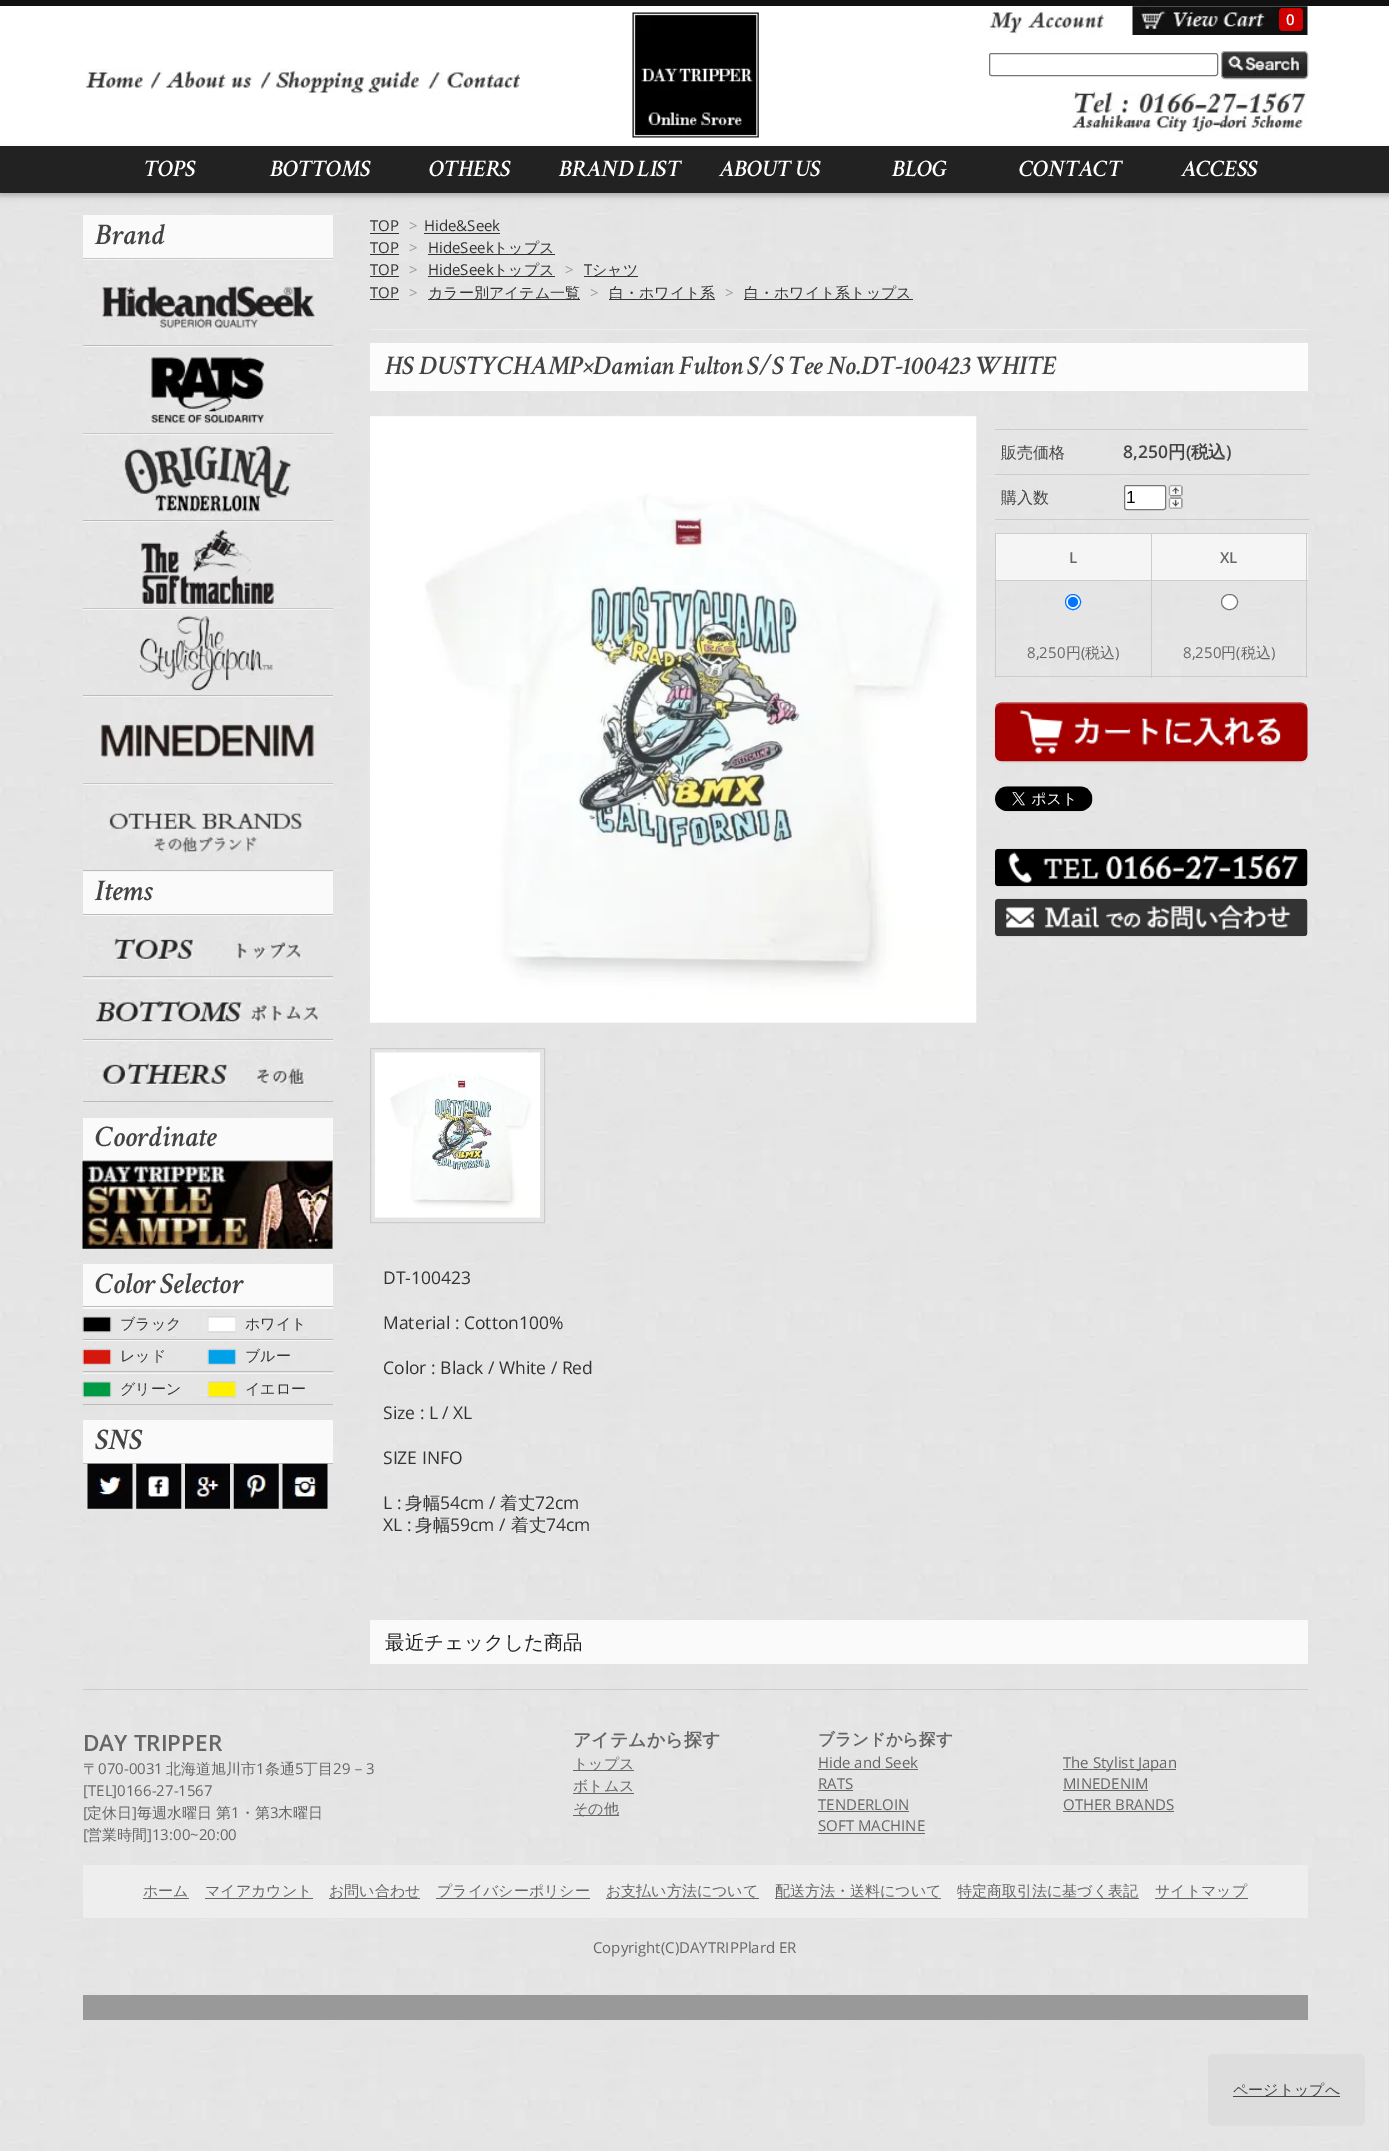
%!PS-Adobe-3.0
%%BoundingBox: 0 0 1389 2151
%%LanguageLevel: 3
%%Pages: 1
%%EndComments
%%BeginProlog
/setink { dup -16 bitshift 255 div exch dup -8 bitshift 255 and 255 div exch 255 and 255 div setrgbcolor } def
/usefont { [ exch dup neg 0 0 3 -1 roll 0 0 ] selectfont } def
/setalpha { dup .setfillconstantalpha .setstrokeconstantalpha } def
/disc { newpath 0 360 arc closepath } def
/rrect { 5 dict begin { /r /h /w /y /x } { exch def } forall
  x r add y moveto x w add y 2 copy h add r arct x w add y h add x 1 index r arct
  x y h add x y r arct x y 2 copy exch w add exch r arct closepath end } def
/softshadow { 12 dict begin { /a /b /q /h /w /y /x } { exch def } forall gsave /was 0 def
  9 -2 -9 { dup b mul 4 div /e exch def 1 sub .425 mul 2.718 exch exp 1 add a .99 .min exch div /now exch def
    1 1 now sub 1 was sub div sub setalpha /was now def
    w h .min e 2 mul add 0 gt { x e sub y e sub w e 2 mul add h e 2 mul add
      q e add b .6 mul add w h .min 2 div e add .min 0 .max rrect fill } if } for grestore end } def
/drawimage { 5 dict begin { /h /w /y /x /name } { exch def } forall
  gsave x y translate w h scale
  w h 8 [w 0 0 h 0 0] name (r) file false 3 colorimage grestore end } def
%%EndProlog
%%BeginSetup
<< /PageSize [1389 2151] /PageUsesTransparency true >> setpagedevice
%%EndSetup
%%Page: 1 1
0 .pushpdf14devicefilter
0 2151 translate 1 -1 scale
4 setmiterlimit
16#FFFFFF setink
0 0 1389 2151 rectfill
(img1.raw) 0 193 1389 1958 drawimage
16#111111 setink
0 0 1389 6 rectfill
(img2.raw) 632 12 127 126 drawimage
(img3.raw) 989 11 119 24 drawimage
(img4.raw) 1132 6 176 29 drawimage
16#CF0000 setink
1279 8 24 23 4 rrect fill
/OpenSans-SemiBold 15 usefont
16#FFFFFF setink
1286 25 moveto (0) show
16#767676 setink
989.5 53.5 228 22 2 rrect stroke
(img5.raw) 1221 51 87 28 drawimage
16#AAAAAA setink
1221.5 51.5 86 27 3.5 rrect stroke
(img6.raw) 148 69 295 25 drawimage
(img7.raw) 85 69 67 20 drawimage
(img8.raw) 166 69 96 20 drawimage
(img9.raw) 275 69 145 25 drawimage
(img10.raw) 446 70 74 19 drawimage
(img11.raw) 1072 90 236 44 drawimage
0 150 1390 46 0 3 1 softshadow
16#222222 setink
0 146 1389 47 rectfill
/CrimsonText-SemiBoldItalic 23.75 usefont
16#FFFFFF setink
[
    [(TOPS) 144 176]
    [(BOTTOMS) 270 176]
    [(OTHERS) 429 176]
    [(BRAND LIST) 559 176]
    [(ABOUT US) 719 176]
    [(BLOG) 892 176]
    [(CONTACT) 1019 176]
    [(ACCESS) 1181 176]
] { aload pop moveto show } forall
16#FAFAFA setink
83 215 250 43 rectfill
16#BBBBBB setink
83 258 250 1 rectfill
/CrimsonText-SemiBoldItalic 30 usefont
16#444444 setink
95 244 moveto (Brand) show
(img12.raw) 83 258 250 87 drawimage
16#F5F5F5 setink
83 259 250 1 rectfill
16#BBBBBB setink
83 345 250 1 rectfill
(img13.raw) 83 357 234 69 drawimage
16#F5F5F5 setink
83 346 250 1 rectfill
16#BBBBBB setink
83 433 250 1 rectfill
(img14.raw) 83 433 250 87 drawimage
16#F5F5F5 setink
83 434 250 1 rectfill
16#BBBBBB setink
83 520 250 1 rectfill
(img15.raw) 83 522 232 86 drawimage
16#F5F5F5 setink
83 521 250 1 rectfill
16#BBBBBB setink
83 608 250 1 rectfill
(img16.raw) 83 608 250 83 drawimage
16#F5F5F5 setink
83 609 250 1 rectfill
16#BBBBBB setink
83 695 250 1 rectfill
(img17.raw) 83 699 248 77 drawimage
[
    [83 696 250 1 16#F5F5F5]
    [83 783 250 1 16#BBBBBB]
    [83 871 250 43 16#FAFAFA]
] { aload pop setink rectfill } forall
(img18.raw) 83 783 250 89 drawimage
[
    [83 784 250 1 16#F5F5F5]
    [83 870 250 1 16#BBBBBB]
    [83 914 250 1 16#BBBBBB]
] { aload pop setink rectfill } forall
16#444444 setink
95 900 moveto (Items) show
(img19.raw) 84 916 223 60 drawimage
16#F5F5F5 setink
83 915 250 1 rectfill
16#BBBBBB setink
83 976 250 1 rectfill
(img20.raw) 83 979 239 60 drawimage
16#F5F5F5 setink
83 978 250 1 rectfill
16#BBBBBB setink
83 1039 250 1 rectfill
(img21.raw) 84 1041 224 60 drawimage
[
    [83 1040 250 1 16#F5F5F5]
    [83 1101 250 1 16#BBBBBB]
    [83 1118 250 42 16#FAFAFA]
    [83 1160 250 1 16#BBBBBB]
] { aload pop setink rectfill } forall
16#444444 setink
95 1146 moveto (Coordinate) show
(img22.raw) 82 1161 251 88 drawimage
16#FAFAFA setink
83 1264 250 44 rectfill
16#BBBBBB setink
83 1306 250 1 rectfill
16#444444 setink
95 1293 moveto (Color Selector) show
(img23.raw) 82 1316 30 17 drawimage
16#F5F5F5 setink
83 1308 250 1 rectfill
16#BBBBBB setink
83 1339 250 1 rectfill
/WenQuanYiZenHei-Medium 15 usefont
16#333333 setink
120 1329 moveto (ブラック) show
(img24.raw) 208 1316 28 17 drawimage
245 1329 moveto (ホワイト) show
(img25.raw) 82 1348 30 17 drawimage
16#F5F5F5 setink
83 1340 250 1 rectfill
16#BBBBBB setink
83 1371 250 1 rectfill
16#333333 setink
120 1361 moveto (レッド) show
(img26.raw) 207 1348 30 17 drawimage
245 1361 moveto (ブルー) show
(img27.raw) 82 1381 30 17 drawimage
16#F5F5F5 setink
83 1373 250 1 rectfill
16#BBBBBB setink
83 1404 250 1 rectfill
16#333333 setink
120 1394 moveto (グリーン) show
(img28.raw) 207 1381 30 17 drawimage
245 1394 moveto (イエロー) show
16#FAFAFA setink
83 1420 250 43 rectfill
16#BBBBBB setink
83 1463 250 1 rectfill
/CrimsonText-SemiBoldItalic 30 usefont
16#444444 setink
95 1449 moveto (SNS) show
(img29.raw) 87 1463 46 46 drawimage
(img30.raw) 136 1463 46 46 drawimage
(img31.raw) 185 1463 45 46 drawimage
(img32.raw) 233 1463 46 46 drawimage
(img33.raw) 282 1463 46 46 drawimage
16#EEEEEE setink
370 329 938 1 rectfill
/OpenSans-Regular 15 usefont
16#333333 setink
370 231 moveto (TOP) show
370 233 29 1 rectfill
16#999999 setink
409 231 moveto (>) show
16#333333 setink
424 231 moveto (Hide&Seek) show
424 233 76 1 rectfill
370 253 moveto (TOP) show
370 254 29 1 rectfill
16#999999 setink
409 253 moveto (>) show
16#333333 setink
428 253 moveto (HideSeek) show
428 254 127 1 rectfill
/WenQuanYiZenHei-Medium 15 usefont
493 253 moveto (トップス) show
/OpenSans-Regular 15 usefont
370 275 moveto (TOP) show
370 276 29 1 rectfill
16#999999 setink
409 275 moveto (>) show
16#333333 setink
428 275 moveto (HideSeek) show
428 276 127 1 rectfill
/WenQuanYiZenHei-Medium 15 usefont
493 275 moveto (トップス) show
/OpenSans-Regular 15 usefont
16#999999 setink
565 275 moveto (>) show
16#333333 setink
584 275 moveto (T) show
584 276 54 1 rectfill
/WenQuanYiZenHei-Medium 15 usefont
592 275 moveto (シャツ) show
/OpenSans-Regular 15 usefont
370 298 moveto (TOP) show
370 299 29 1 rectfill
16#999999 setink
409 298 moveto (>) show
16#333333 setink
428 299 152 1 rectfill
/WenQuanYiZenHei-Medium 15 usefont
428 298 moveto (カラー別アイテム一覧) show
/OpenSans-Regular 15 usefont
16#999999 setink
590 298 moveto (>) show
16#333333 setink
609 299 106 1 rectfill
/WenQuanYiZenHei-Medium 15 usefont
609 298 moveto (白・ホワイト系) show
/OpenSans-Regular 15 usefont
16#999999 setink
725 298 moveto (>) show
16#333333 setink
744 299 169 1 rectfill
/WenQuanYiZenHei-Medium 15 usefont
744 298 moveto (白・ホワイト系トップス) show
16#FCFCFC setink
370 343 938 48 rectfill
/CrimsonText-SemiBoldItalic 27 usefont
16#444444 setink
385 374 moveto (HS DUSTYCHAMP×Damian Fulton S/S Tee No.DT-100423 WHITE) show
16#EEEEEE setink
370 416 606 607 rectfill
(img34.raw) 370 416 607 607 drawimage
16#CCCCCC setink
995 429 313 1 rectfill
/WenQuanYiZenHei-Medium 16 usefont
16#444444 setink
1001 458 moveto (販売価格) show
16#CCCCCC setink
995 474 314 1 rectfill
/OpenSans-SemiBold 17.5 usefont
16#444444 setink
1123 458 moveto (8,250) show
/WenQuanYiZenHei-Bold 17.5 usefont
1168 458 moveto (円 税込) show
/OpenSans-SemiBold 17.5 usefont
1186 458 moveto (\() show
1226 458 moveto (\)) show
/WenQuanYiZenHei-Medium 16 usefont
1001 503 moveto (購入数) show
16#CCCCCC setink
995 519 314 1 rectfill
16#FFFFFF setink
1124.5 485.5 41 24 2 rrect gsave fill grestore
16#767676 setink
stroke
/LiberationSans-Regular 17.5 usefont
16#000000 setink
1126 503 moveto (1) show
(img35.raw) 1168 484 15 13 drawimage
(img36.raw) 1168 497 15 12 drawimage
[
    [996 534 155 46 16#F5F5F5]
    [1151 533 157 1 16#CCCCCC]
    [1151 580 157 1 16#CCCCCC]
    [1306 580 1 98 16#CCCCCC]
    [1151 676 157 1 16#CCCCCC]
    [1151 580 1 98 16#CCCCCC]
    [995 580 158 1 16#CCCCCC]
    [1151 533 1 48 16#CCCCCC]
    [995 533 158 1 16#CCCCCC]
    [995 676 158 1 16#CCCCCC]
    [995 580 1 98 16#CCCCCC]
    [995 533 1 48 16#CCCCCC]
] { aload pop setink rectfill } forall
/OpenSans-SemiBold 15 usefont
16#666666 setink
1069 563 moveto (L) show
16#F5F5F5 setink
1152 534 156 46 rectfill
16#CCCCCC setink
1306 533 1 48 rectfill
16#666666 setink
1220 563 moveto (XL) show
16#FFFFFF setink
1073 602 7.5 disc gsave fill grestore
16#0075FF setink
stroke
1073 602 5 disc fill
/OpenSans-Regular 15 usefont
16#666666 setink
1027 658 moveto (8,250) show
/WenQuanYiZenHei-Medium 15 usefont
1066 658 moveto (円 税込) show
/OpenSans-Regular 15 usefont
1081 658 moveto (\() show
1115 658 moveto (\)) show
16#FFFFFF setink
1221.5 594.5 16 15 7.5 rrect gsave fill grestore
16#767676 setink
stroke
16#666666 setink
1183 658 moveto (8,250) show
/WenQuanYiZenHei-Medium 15 usefont
1221 658 moveto (円) show
/OpenSans-Regular 15 usefont
1236 658 moveto (\() show
/WenQuanYiZenHei-Medium 15 usefont
1241 658 moveto (税込) show
/OpenSans-Regular 15 usefont
1271 658 moveto (\)) show
16#000000 setink
995 704 313 59 6 1 0.05 softshadow
(img37.raw) 995 702 313 60 drawimage
0.2 setalpha
16#FFFFFF setink
1001 704 moveto 1301 704 lineto 1305 704 1308 707 1308 710 curveto 1308 709 lineto 1308 706 1305 703 1302 703 curveto 1001 703 lineto 998 703 995 706 995 709 curveto 995 710 lineto 995 707 998 704 1001 704 curveto closepath fill
1 setalpha
(img38.raw) 995 786 98 26 drawimage
(img39.raw) 995 848 313 39 drawimage
(img40.raw) 995 898 313 39 drawimage
16#CCCCCC setink
370.5 1048.5 174 174 rectstroke
(img41.raw) 375 1052 165 166 drawimage
/OpenSans-Regular 17.5 usefont
16#333333 setink
[
    [(DT-100423) 383 1284]
    [(Material : Cotton100%) 383 1329]
    [(Color : Black / White / Red) 383 1374]
    [(Size : L / XL) 383 1419]
    [(SIZE INFO) 383 1464]
    [(L :) 383 1509]
] { aload pop moveto show } forall
/WenQuanYiZenHei-Medium 17.5 usefont
405 1509 moveto (身幅) show
/OpenSans-Regular 17.5 usefont
440 1509 moveto (54cm /) show
/WenQuanYiZenHei-Medium 17.5 usefont
500 1509 moveto (着丈) show
/OpenSans-Regular 17.5 usefont
535 1509 moveto (72cm) show
383 1531 moveto (XL :) show
/WenQuanYiZenHei-Medium 17.5 usefont
415 1531 moveto (身幅) show
/OpenSans-Regular 17.5 usefont
450 1531 moveto (59cm /) show
/WenQuanYiZenHei-Medium 17.5 usefont
511 1531 moveto (着丈) show
/OpenSans-Regular 17.5 usefont
546 1531 moveto (74cm) show
16#FAFAFA setink
370 1620 938 44 rectfill
/WenQuanYiZenHei-Medium 19.5 usefont
16#222222 setink
385 1649 moveto (最近チェックした商品) show
16#CCCCCC setink
83 1689 1225 1 rectfill
/OpenSans-SemiBold 22.5 usefont
16#666666 setink
83 1751 moveto (DAY TRIPPER) show
/WenQuanYiZenHei-Medium 15 usefont
83 1774 moveto (〒) show
/OpenSans-Regular 15 usefont
98 1774 moveto (070-0031) show
/WenQuanYiZenHei-Medium 15 usefont
166 1774 moveto (北海道旭川市) show
/OpenSans-Regular 15 usefont
256 1774 moveto (1) show
/WenQuanYiZenHei-Medium 15 usefont
265 1774 moveto (条通) show
/OpenSans-Regular 15 usefont
295 1774 moveto (5) show
/WenQuanYiZenHei-Medium 15 usefont
303 1774 moveto (丁目) show
/OpenSans-Regular 15 usefont
333 1774 moveto (29) show
/WenQuanYiZenHei-Medium 15 usefont
351 1774 moveto (－) show
/OpenSans-Regular 15 usefont
[
    [(3) 366 1774]
    [([TEL]0166-27-1567) 83 1796]
    [([) 83 1818]
] { aload pop moveto show } forall
/WenQuanYiZenHei-Medium 15 usefont
87 1818 moveto (定休日) show
/OpenSans-Regular 15 usefont
132 1818 moveto (]) show
/WenQuanYiZenHei-Medium 15 usefont
137 1818 moveto (毎週水曜日) show
216 1818 moveto (第) show
/OpenSans-Regular 15 usefont
231 1818 moveto (1) show
/WenQuanYiZenHei-Medium 15 usefont
240 1818 moveto (・第) show
/OpenSans-Regular 15 usefont
270 1818 moveto (3) show
/WenQuanYiZenHei-Medium 15 usefont
278 1818 moveto (木曜日) show
/OpenSans-Regular 15 usefont
83 1840 moveto ([) show
/WenQuanYiZenHei-Medium 15 usefont
87 1840 moveto (営業時間) show
/OpenSans-Regular 15 usefont
147 1840 moveto (]13:00~20:00) show
/WenQuanYiZenHei-Bold 18 usefont
573 1746 moveto (アイテムから探す) show
573 1770 61 1 rectfill
/WenQuanYiZenHei-Medium 15 usefont
573 1769 moveto (トップス) show
573 1791 moveto (ボトムス) show
573 1793 61 1 rectfill
573 1815 46 1 rectfill
573 1814 moveto (その他) show
/WenQuanYiZenHei-Bold 16.5 usefont
818 1745 moveto (ブランドから探す) show
/OpenSans-Regular 15 usefont
818 1768 moveto (Hide and Seek) show
818 1769 100 1 rectfill
818 1789 moveto (RATS) show
818 1790 35 1 rectfill
818 1810 moveto (TENDERLOIN) show
818 1811 91 1 rectfill
818 1831 moveto (SOFT MACHINE) show
818 1833 107 1 rectfill
1063 1769 113 1 rectfill
1063 1768 moveto (The Stylist Japan) show
1063 1789 moveto (MINEDENIM) show
1063 1790 85 1 rectfill
1063 1810 moveto (OTHER BRANDS) show
1063 1811 111 1 rectfill
16#EEEEEE setink
83 1865 1225 53 rectfill
/WenQuanYiZenHei-Medium 15 usefont
16#666666 setink
143 1896 moveto (ホーム) show
143 1898 46 1 rectfill
205 1896 moveto (マイアカウント) show
205 1898 108 1 rectfill
329 1898 91 1 rectfill
329 1896 moveto (お問い合わせ) show
436 1898 154 1 rectfill
437 1896 moveto (プライバシーポリシー) show
606 1898 153 1 rectfill
606 1896 moveto (お支払い方法について) show
775 1896 moveto (配送方法・送料について) show
775 1898 166 1 rectfill
958 1898 181 1 rectfill
957 1896 moveto (特定商取引法に基づく表記) show
1155 1898 93 1 rectfill
1155 1896 moveto (サイトマップ) show
/OpenSans-Regular 15 usefont
593 1953 moveto (Copyright\(C\)DAYTRIPPlard ER) show
16#999999 setink
83 1995 1225 25 rectfill
16#DDDDDD setink
1208 2054 157 72 6 rrect fill
16#444444 setink
1233 2096 107 1 rectfill
/WenQuanYiZenHei-Medium 15 usefont
1233 2095 moveto (ページトップへ) show
.poppdf14devicefilter showpage
%%EOF
